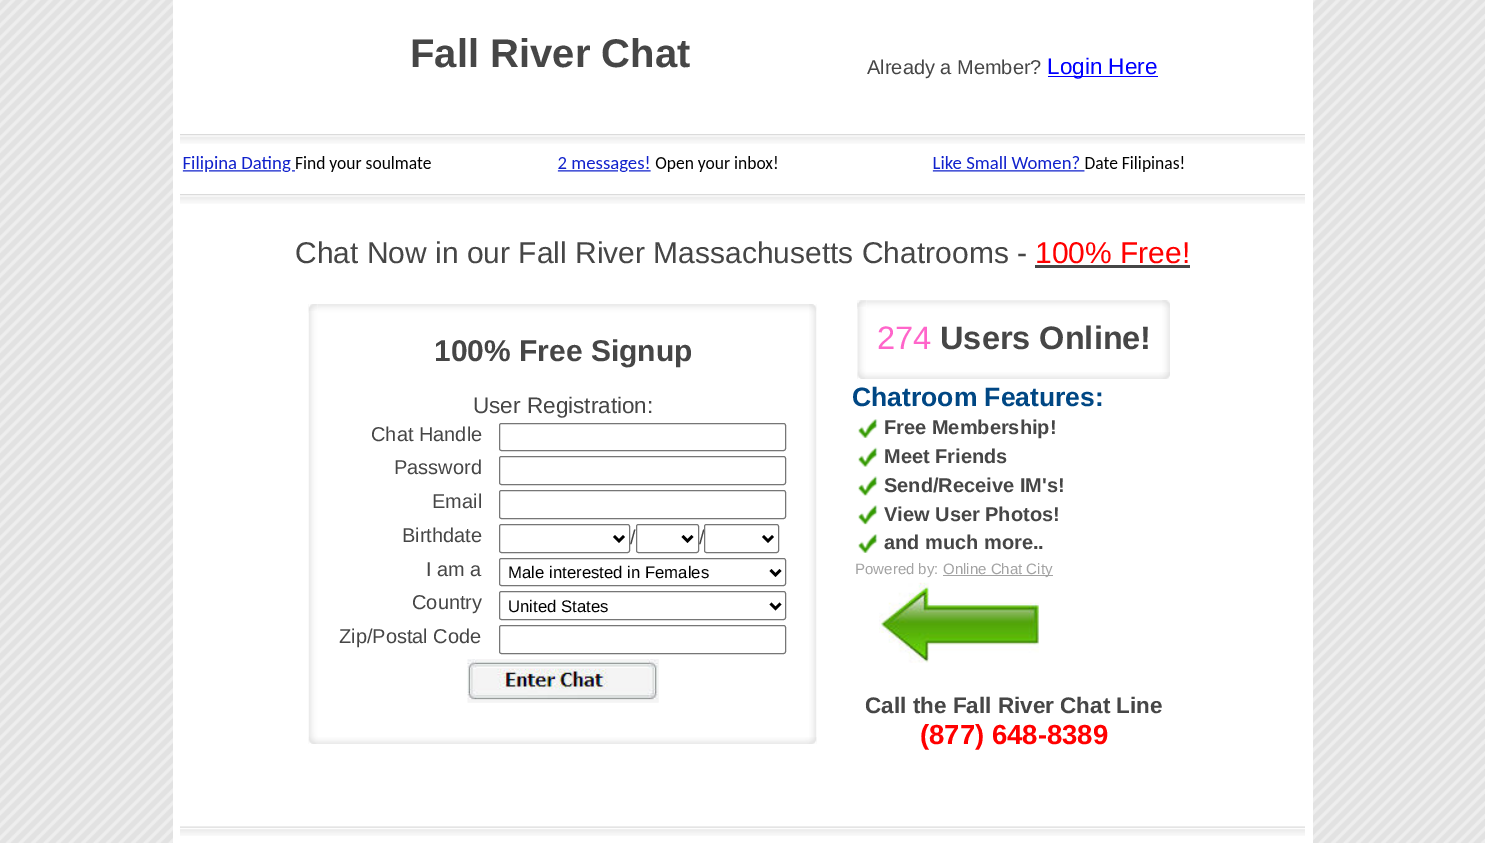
%!PS-Adobe-3.0
%%BoundingBox: 0 0 1485 843
%%LanguageLevel: 3
%%Pages: 1
%%EndComments
%%BeginProlog
/setink { dup -16 bitshift 255 div exch dup -8 bitshift 255 and 255 div exch 255 and 255 div setrgbcolor } def
/usefont { [ exch dup neg 0 0 3 -1 roll 0 0 ] selectfont } def
/rrect { 5 dict begin { /r /h /w /y /x } { exch def } forall
  x r add y moveto x w add y 2 copy h add r arct x w add y h add x 1 index r arct
  x y h add x y r arct x y 2 copy exch w add exch r arct closepath end } def
/drawimage { 5 dict begin { /h /w /y /x /name } { exch def } forall
  gsave x y translate w h scale
  w h 8 [w 0 0 h 0 0] name (r) file false 3 colorimage grestore end } def
%%EndProlog
%%BeginSetup
<< /PageSize [1485 843] >> setpagedevice
%%EndSetup
%%Page: 1 1
0 843 translate 1 -1 scale
4 setmiterlimit
16#FFFFFF setink
0 0 1485 843 rectfill
(img1.raw) 0 0 1485 843 drawimage
173 0 1140 843 rectfill
/LiberationSans-Bold 40 usefont
16#464646 setink
410 67 moveto (Fall River Chat) show
/LiberationSans-Regular 20 usefont
867 74 moveto (Already a Member?) show
16#0000FF setink
1048 76 110 1 rectfill
/LiberationSans-Regular 22.5 usefont
1047 74 moveto (Login Here) show
(img2.raw) 180 134 1125 10 drawimage
(img3.raw) 182 156 1002 16 drawimage
(img2.raw) 180 194 1125 10 drawimage
/LiberationSans-Regular 30 usefont
16#464646 setink
295 263 moveto (Chat Now in our Fall River Massachusetts Chatrooms -) show
16#FF0000 setink
1035 263 moveto (100% Free!) show
16#464646 setink
1035 265 155 3 rectfill
(img4.raw) 308 304 509 9 drawimage
(img5.raw) 809 304 8 440 drawimage
(img6.raw) 308 737 509 7 drawimage
(img7.raw) 308 304 10 440 drawimage
(img8.raw) 309 304 9 7 drawimage
/LiberationSans-Bold 30 usefont
434 361 moveto (100% Free Signup) show
/LiberationSans-Regular 22.5 usefont
473 413 moveto (User Registration:) show
/LiberationSans-Regular 20 usefont
371 441 moveto (Chat Handle) show
16#767676 setink
499.5 423.5 286 27 2 rrect stroke
16#464646 setink
394 474 moveto (Password) show
16#767676 setink
499.5 456.5 286 28 2 rrect stroke
16#464646 setink
432 508 moveto (Email) show
16#767676 setink
499.5 490.5 286 28 2 rrect stroke
16#464646 setink
402 542 moveto (Birthdate) show
16#767676 setink
499.5 524.5 130 28 2 rrect stroke
16#000000 setink
2.5 setlinewidth
614 536 moveto 619 541 lineto 624 536 lineto stroke
16#464646 setink
630 544 moveto (/) show
16#767676 setink
1 setlinewidth
636.5 524.5 62 28 2 rrect stroke
16#000000 setink
2.5 setlinewidth
682.5 536 moveto 687.5 541 lineto 692.5 536 lineto stroke
16#464646 setink
699 544 moveto (/) show
16#767676 setink
1 setlinewidth
704.5 524.5 74 28 2 rrect stroke
16#000000 setink
2.5 setlinewidth
763 536 moveto 768 541 lineto 773 536 lineto stroke
16#464646 setink
426 576 moveto (I am a) show
16#767676 setink
1 setlinewidth
499.5 558.5 286 27 2 rrect stroke
16#000000 setink
2.5 setlinewidth
770.5 570 moveto 775.5 575 lineto 780.5 570 lineto stroke
/LiberationSans-Regular 16.75 usefont
508 578 moveto (Male interested in Females) show
/LiberationSans-Regular 20 usefont
16#464646 setink
412 609 moveto (Country) show
16#767676 setink
1 setlinewidth
499.5 591.5 286 28 2 rrect stroke
16#000000 setink
2.5 setlinewidth
770.5 603.5 moveto 775.5 608.5 lineto 780.5 603.5 lineto stroke
/LiberationSans-Regular 16.75 usefont
508 612 moveto (United States) show
/LiberationSans-Regular 20 usefont
16#464646 setink
339 643 moveto (Zip/Postal Code) show
16#767676 setink
1 setlinewidth
499.5 625.5 286 28 2 rrect stroke
(img9.raw) 467 659 192 44 drawimage
(img10.raw) 857 300 313 9 drawimage
(img11.raw) 1162 300 8 72 drawimage
(img12.raw) 857 372 313 7 drawimage
(img13.raw) 857 300 10 79 drawimage
(img14.raw) 857 300 9 7 drawimage
/LiberationSans-Regular 32.5 usefont
16#FF65CA setink
877 349 moveto (274) show
/LiberationSans-Bold 32.5 usefont
16#464646 setink
940 349 moveto (Users Online!) show
/LiberationSans-Bold 26.5 usefont
16#004784 setink
852 406 moveto (Chatroom Features:) show
(img15.raw) 858 419 20 19 drawimage
/LiberationSans-Bold 20 usefont
16#464646 setink
884 434 moveto (Free Membership!) show
(img16.raw) 858 447 20 20 drawimage
884 463 moveto (Meet Friends) show
(img17.raw) 858 476 20 20 drawimage
884 492 moveto (Send/Receive IM's!) show
(img18.raw) 858 505 20 20 drawimage
884 521 moveto (View User Photos!) show
(img15.raw) 858 534 20 19 drawimage
884 549 moveto (and much more..) show
/LiberationSans-Regular 15 usefont
16#A3A3A3 setink
855 574 moveto (Powered by:) show
943 575 110 1 rectfill
943 574 moveto (Online Chat City) show
(img19.raw) 879 582 160 81 drawimage
/LiberationSans-Bold 22.5 usefont
16#464646 setink
865 713 moveto (Call the Fall River Chat Line) show
/LiberationSans-Bold 27.5 usefont
16#FF0000 setink
920 744 moveto (\(877\) 648-8389) show
(img20.raw) 180 826 1125 10 drawimage
showpage
%%EOF
